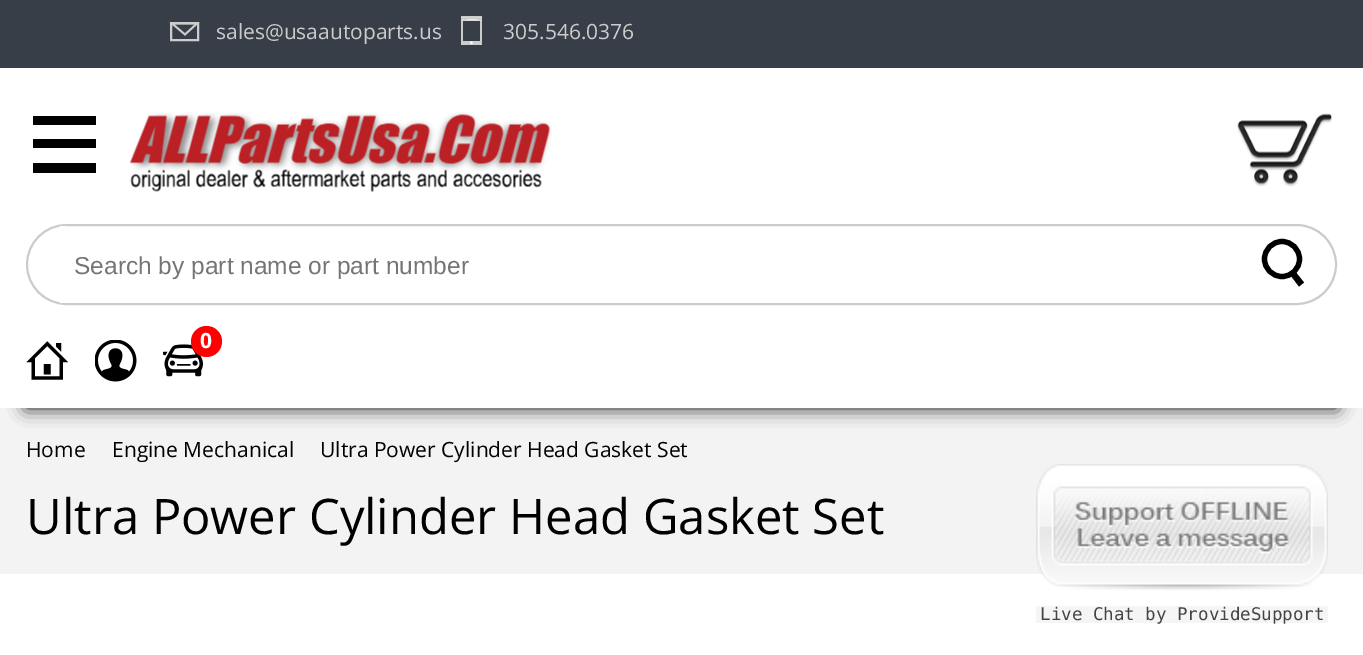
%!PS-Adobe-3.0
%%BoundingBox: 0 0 1363 655
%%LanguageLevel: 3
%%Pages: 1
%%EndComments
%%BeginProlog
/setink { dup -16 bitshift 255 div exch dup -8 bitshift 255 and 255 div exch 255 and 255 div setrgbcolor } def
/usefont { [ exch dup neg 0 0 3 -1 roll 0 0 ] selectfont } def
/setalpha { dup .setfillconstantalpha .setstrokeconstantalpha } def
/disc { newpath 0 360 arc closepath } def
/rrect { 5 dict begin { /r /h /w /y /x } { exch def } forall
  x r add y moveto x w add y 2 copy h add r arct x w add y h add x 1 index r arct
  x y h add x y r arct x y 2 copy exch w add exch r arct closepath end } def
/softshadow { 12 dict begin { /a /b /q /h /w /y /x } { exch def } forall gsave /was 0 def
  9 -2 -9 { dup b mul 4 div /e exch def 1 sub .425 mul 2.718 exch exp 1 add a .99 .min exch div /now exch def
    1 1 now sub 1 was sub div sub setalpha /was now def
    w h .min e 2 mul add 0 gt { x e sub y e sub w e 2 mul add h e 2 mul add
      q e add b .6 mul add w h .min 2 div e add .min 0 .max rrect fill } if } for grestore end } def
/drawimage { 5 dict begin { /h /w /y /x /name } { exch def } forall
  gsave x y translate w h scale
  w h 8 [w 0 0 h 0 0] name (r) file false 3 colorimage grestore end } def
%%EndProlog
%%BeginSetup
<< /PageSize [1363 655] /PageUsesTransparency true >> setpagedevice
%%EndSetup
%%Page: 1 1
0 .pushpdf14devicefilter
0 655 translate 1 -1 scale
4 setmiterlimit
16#F3F3F3 setink
0 0 1363 655 rectfill
16#111111 setink
26 53 1311 355 0 9 1 softshadow
16#373E48 setink
0 0 1363 68 rectfill
16#CCCCCC setink
1.8 setlinewidth
185 34.5 moveto 172 23.5 lineto 197 23.5 lineto closepath stroke
2 setlinewidth
171 23 27 17 rectstroke
/OpenSans-Regular 21 usefont
216 39 moveto (sales@usaautoparts.us) show
(img1.raw) 461 16 21 29 drawimage
503 39 moveto (305.546.0376) show
[
    [0 68 1363 340 16#FFFFFF]
    [33 116 63 9 16#000000]
    [33 139 63 9 16#000000]
    [33 163 63 10 16#000000]
] { aload pop setink rectfill } forall
(img2.raw) 129 112 423 80 drawimage
(img3.raw) 1237 113 95 74 drawimage
16#CCCCCC setink
27 225 1309 79 39.5 rrect stroke
16#FFFFFF setink
60 226 6 77 rectfill
/LiberationSans-Regular 24.5 usefont
16#757575 setink
74 274 moveto (Search by part name or part number) show
16#000000 setink
5.2 setlinewidth
1282 259 17.5 disc stroke
1294 270 moveto 1304 282.5 lineto 1299 286.5 lineto 1289.5 274 lineto closepath fill
(img4.raw) 26 341 42 39 drawimage
(img5.raw) 95 340 42 42 drawimage
(img6.raw) 163 344 40 33 drawimage
16#FF0000 setink
206.5 341.5 15.5 disc fill
/OpenSans-Bold 21 usefont
16#FFFFFF setink
200 348 moveto (0) show
/OpenSans-Regular 21 usefont
16#000000 setink
[
    [(Home) 26 457]
    [(Engine Mechanical) 112 457]
    [(Ultra Power Cylinder Head Gasket Set) 320 457]
] { aload pop moveto show } forall
/OpenSans-Regular 49 usefont
26 534 moveto (Ultra Power Cylinder Head Gasket Set) show
16#FFFFFF setink
0 574 1363 81 rectfill
(img7.raw) 1036 464 292 126 drawimage
16#F5F5F5 setink
1036 606 292 17 rectfill
/DejaVuSansMono-Regular 17.5 usefont
16#444444 setink
1040 620 moveto (Live Chat by ProvideSupport) show
.poppdf14devicefilter showpage
%%EOF
